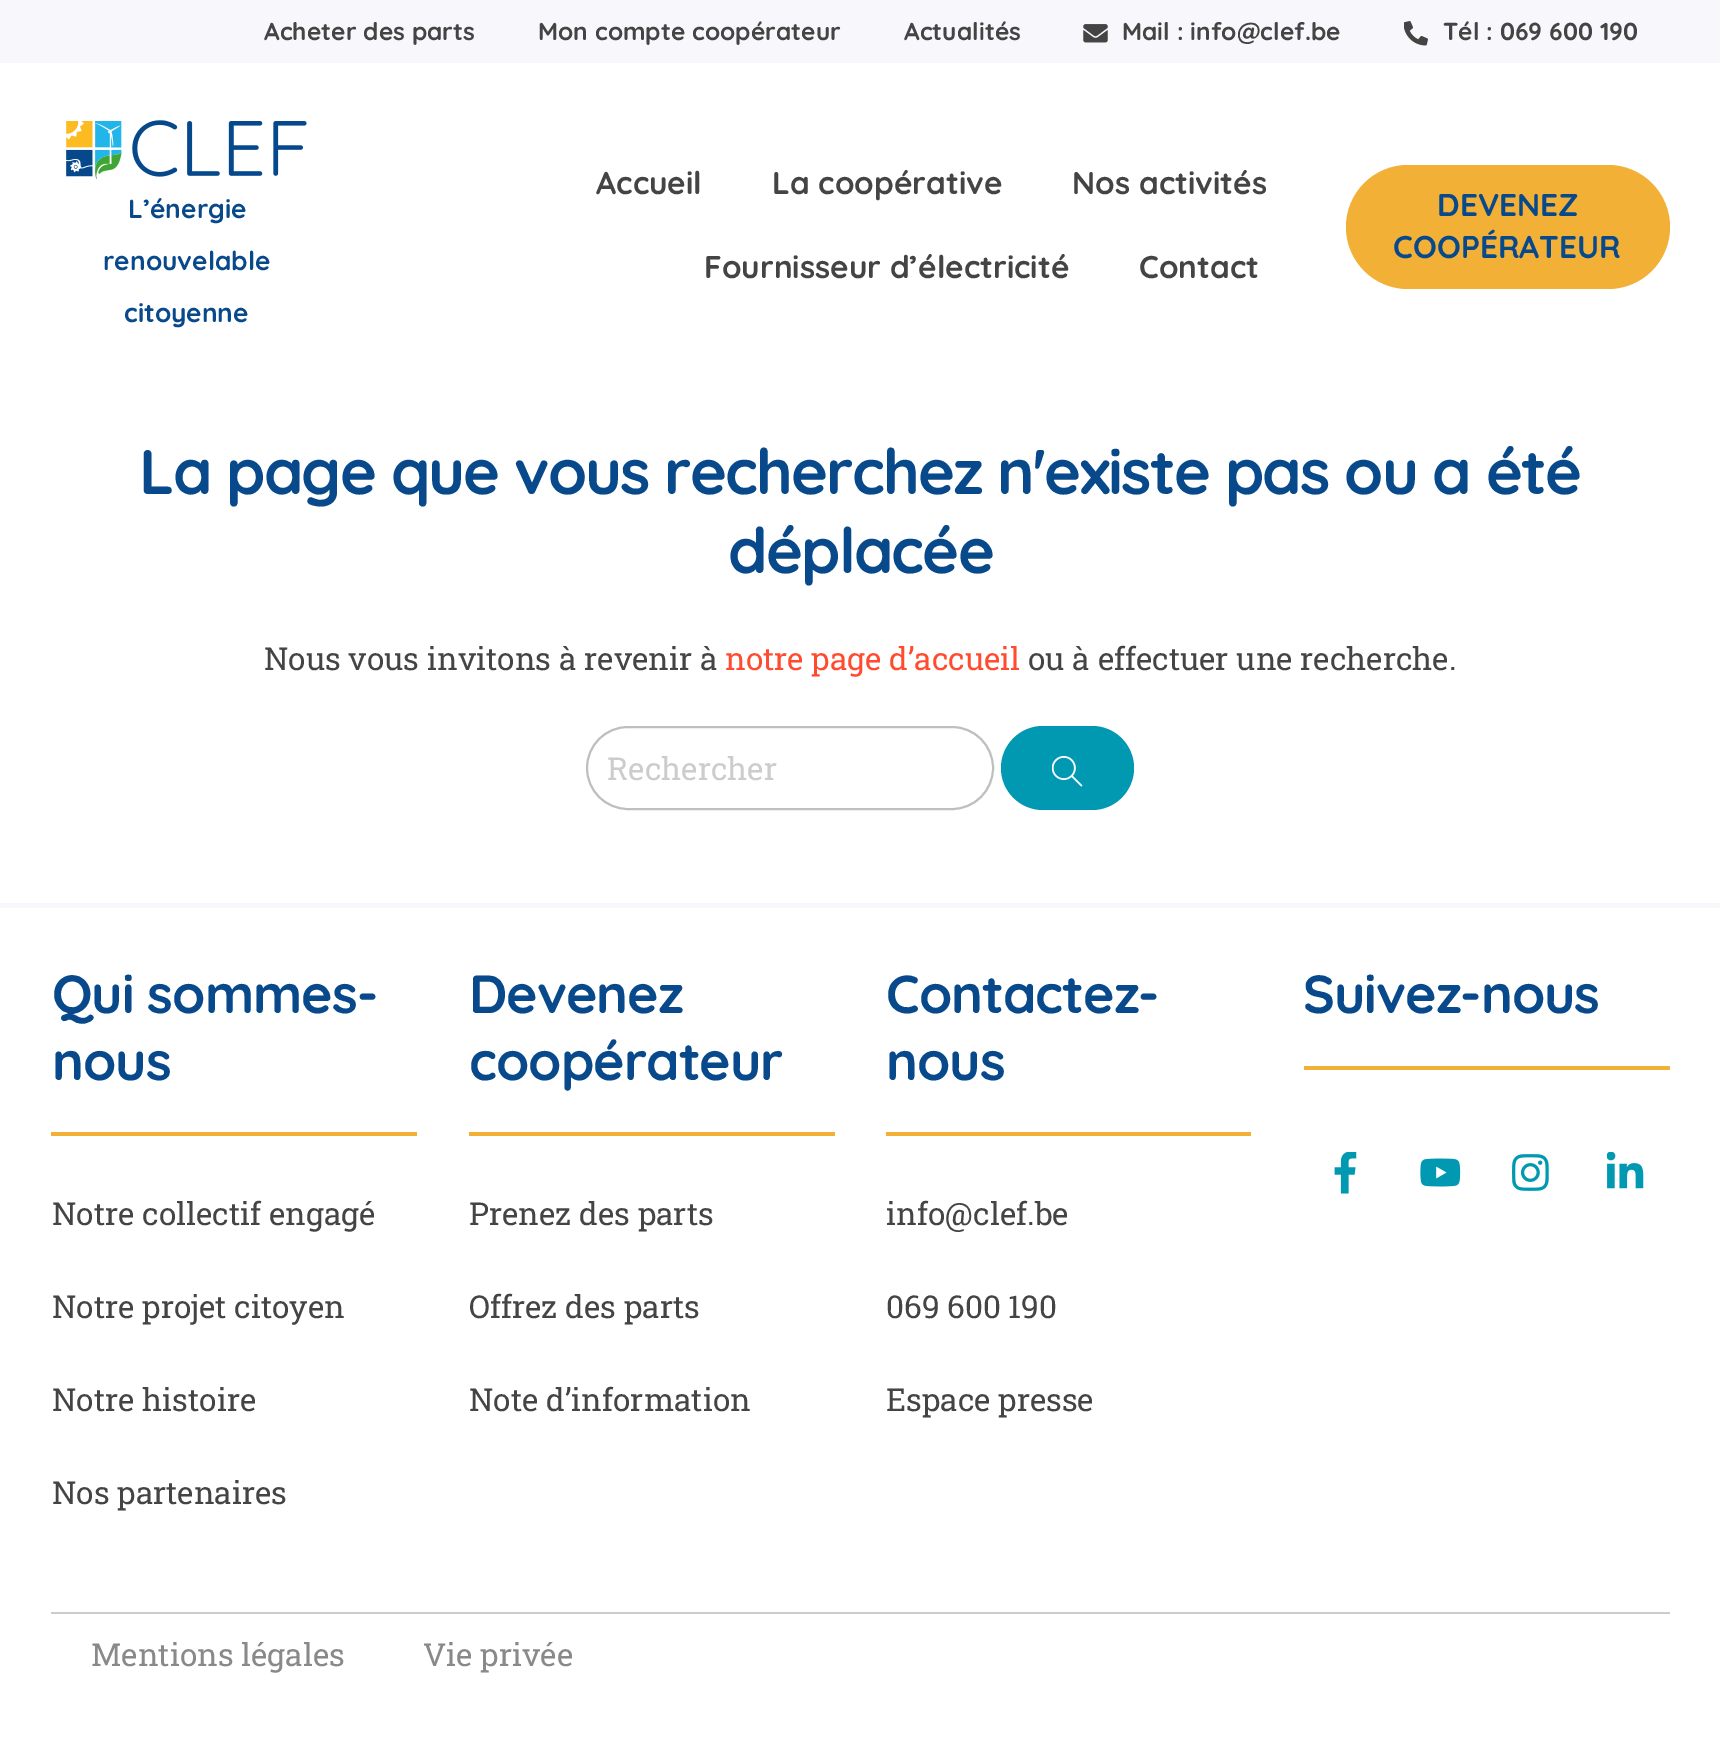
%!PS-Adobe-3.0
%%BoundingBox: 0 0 1720 1748
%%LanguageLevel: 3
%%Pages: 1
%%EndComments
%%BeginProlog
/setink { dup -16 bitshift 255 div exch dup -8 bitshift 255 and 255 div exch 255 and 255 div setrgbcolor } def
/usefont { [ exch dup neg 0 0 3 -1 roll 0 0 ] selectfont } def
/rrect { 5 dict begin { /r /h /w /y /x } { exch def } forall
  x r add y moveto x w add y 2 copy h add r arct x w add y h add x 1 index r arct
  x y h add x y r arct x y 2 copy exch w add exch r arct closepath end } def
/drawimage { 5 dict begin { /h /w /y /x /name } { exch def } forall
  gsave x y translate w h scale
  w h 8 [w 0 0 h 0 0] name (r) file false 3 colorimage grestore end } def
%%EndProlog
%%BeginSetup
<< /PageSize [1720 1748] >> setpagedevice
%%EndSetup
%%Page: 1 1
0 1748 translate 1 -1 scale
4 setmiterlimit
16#FFFFFF setink
0 0 1720 1748 rectfill
16#F8F7FB setink
0 0 1720 63 rectfill
/Quicksand-Bold 24.5 usefont
16#444444 setink
[
    [(Acheter des parts) 264 40]
    [(Mon compte coopérateur) 538 40]
    [(Actualités) 904 40]
] { aload pop moveto show } forall
(img1.raw) 1083 24 25 19 drawimage
1122 40 moveto (Mail : info@clef.be) show
(img2.raw) 1404 21 24 25 drawimage
1443 40 moveto (Tél : 069 600 190) show
(img3.raw) 66 120 241 59 drawimage
/Quicksand-Bold 26.25 usefont
16#07498B setink
[
    [(L’énergie) 128 218]
    [(renouvelable) 103 270]
    [(citoyenne) 124 322]
] { aload pop moveto show } forall
/Quicksand-Bold 31.5 usefont
16#444444 setink
[
    [(Accueil) 596 194]
    [(La coopérative) 772 194]
    [(Nos activités) 1072 194]
    [(Fournisseur d’électricité) 704 278]
    [(Contact) 1139 278]
] { aload pop moveto show } forall
16#F2B037 setink
1346 165 324 124 62 rrect fill
16#07498B setink
1437 216 moveto (DEVENEZ) show
1393 258 moveto (COOPÉRATEUR) show
/Quicksand-Bold 63 usefont
139 494 moveto -1.9 0 (La page que vous recherchez n'existe pas ou a été) ashow
728 573 moveto -1.9 0 (déplacée) ashow
/RobotoSlab-Regular 31.5 usefont
16#444444 setink
264 670 moveto (Nous vous invitons à revenir à) show
16#FF4B2F setink
725 670 moveto (notre page d’accueil) show
16#444444 setink
1028 670 moveto (ou à effectuer une recherche.) show
16#BFBFBF setink
2 setlinewidth
587 727 406 82 41 rrect stroke
16#CCCCCC setink
607 780 moveto (Rechercher) show
16#0099B1 setink
1001 726 133 84 42 rrect fill
(img4.raw) 1052 756 31 31 drawimage
16#F8F7FB setink
0 903 1720 5 rectfill
16#F2B037 setink
51 1132 366 4 rectfill
/Quicksand-Bold 53.5 usefont
16#07498B setink
52 1013 moveto -1 0 (Qui sommes-) ashow
52 1080 moveto -1 0 (nous) ashow
/RobotoSlab-Regular 31.5 usefont
16#444444 setink
[
    [(Notre collectif engagé) 52 1225]
    [(Notre projet citoyen) 52 1318]
    [(Notre histoire) 52 1411]
    [(Nos partenaires) 52 1504]
] { aload pop moveto show } forall
16#F2B037 setink
469 1132 366 4 rectfill
/Quicksand-Bold 53.5 usefont
16#07498B setink
469 1013 moveto -1 0 (Devenez) ashow
469 1080 moveto -1 0 (coopérateur) ashow
/RobotoSlab-Regular 31.5 usefont
16#444444 setink
[
    [(Prenez des parts) 469 1225]
    [(Offrez des parts) 469 1318]
    [(Note d’information) 469 1411]
] { aload pop moveto show } forall
16#F2B037 setink
886 1132 365 4 rectfill
/Quicksand-Bold 53.5 usefont
16#07498B setink
886 1013 moveto -1 0 (Contactez-) ashow
886 1080 moveto -1 0 (nous) ashow
/RobotoSlab-Regular 31.5 usefont
16#444444 setink
[
    [(info@clef.be) 886 1225]
    [(069 600 190) 886 1318]
    [(Espace presse) 886 1411]
] { aload pop moveto show } forall
16#F2B037 setink
1304 1066 366 4 rectfill
/Quicksand-Bold 53.5 usefont
16#07498B setink
1303 1013 moveto -1 0 (Suivez-nous) ashow
(img5.raw) 1334 1152 23 42 drawimage
(img6.raw) 1420 1158 41 29 drawimage
(img7.raw) 1512 1154 37 37 drawimage
(img8.raw) 1607 1152 37 37 drawimage
16#CCCCCC setink
51 1612 1619 2 rectfill
/RobotoSlab-Regular 31.5 usefont
16#898989 setink
91 1666 moveto (Mentions légales) show
423 1666 moveto (Vie privée) show
showpage
%%EOF
